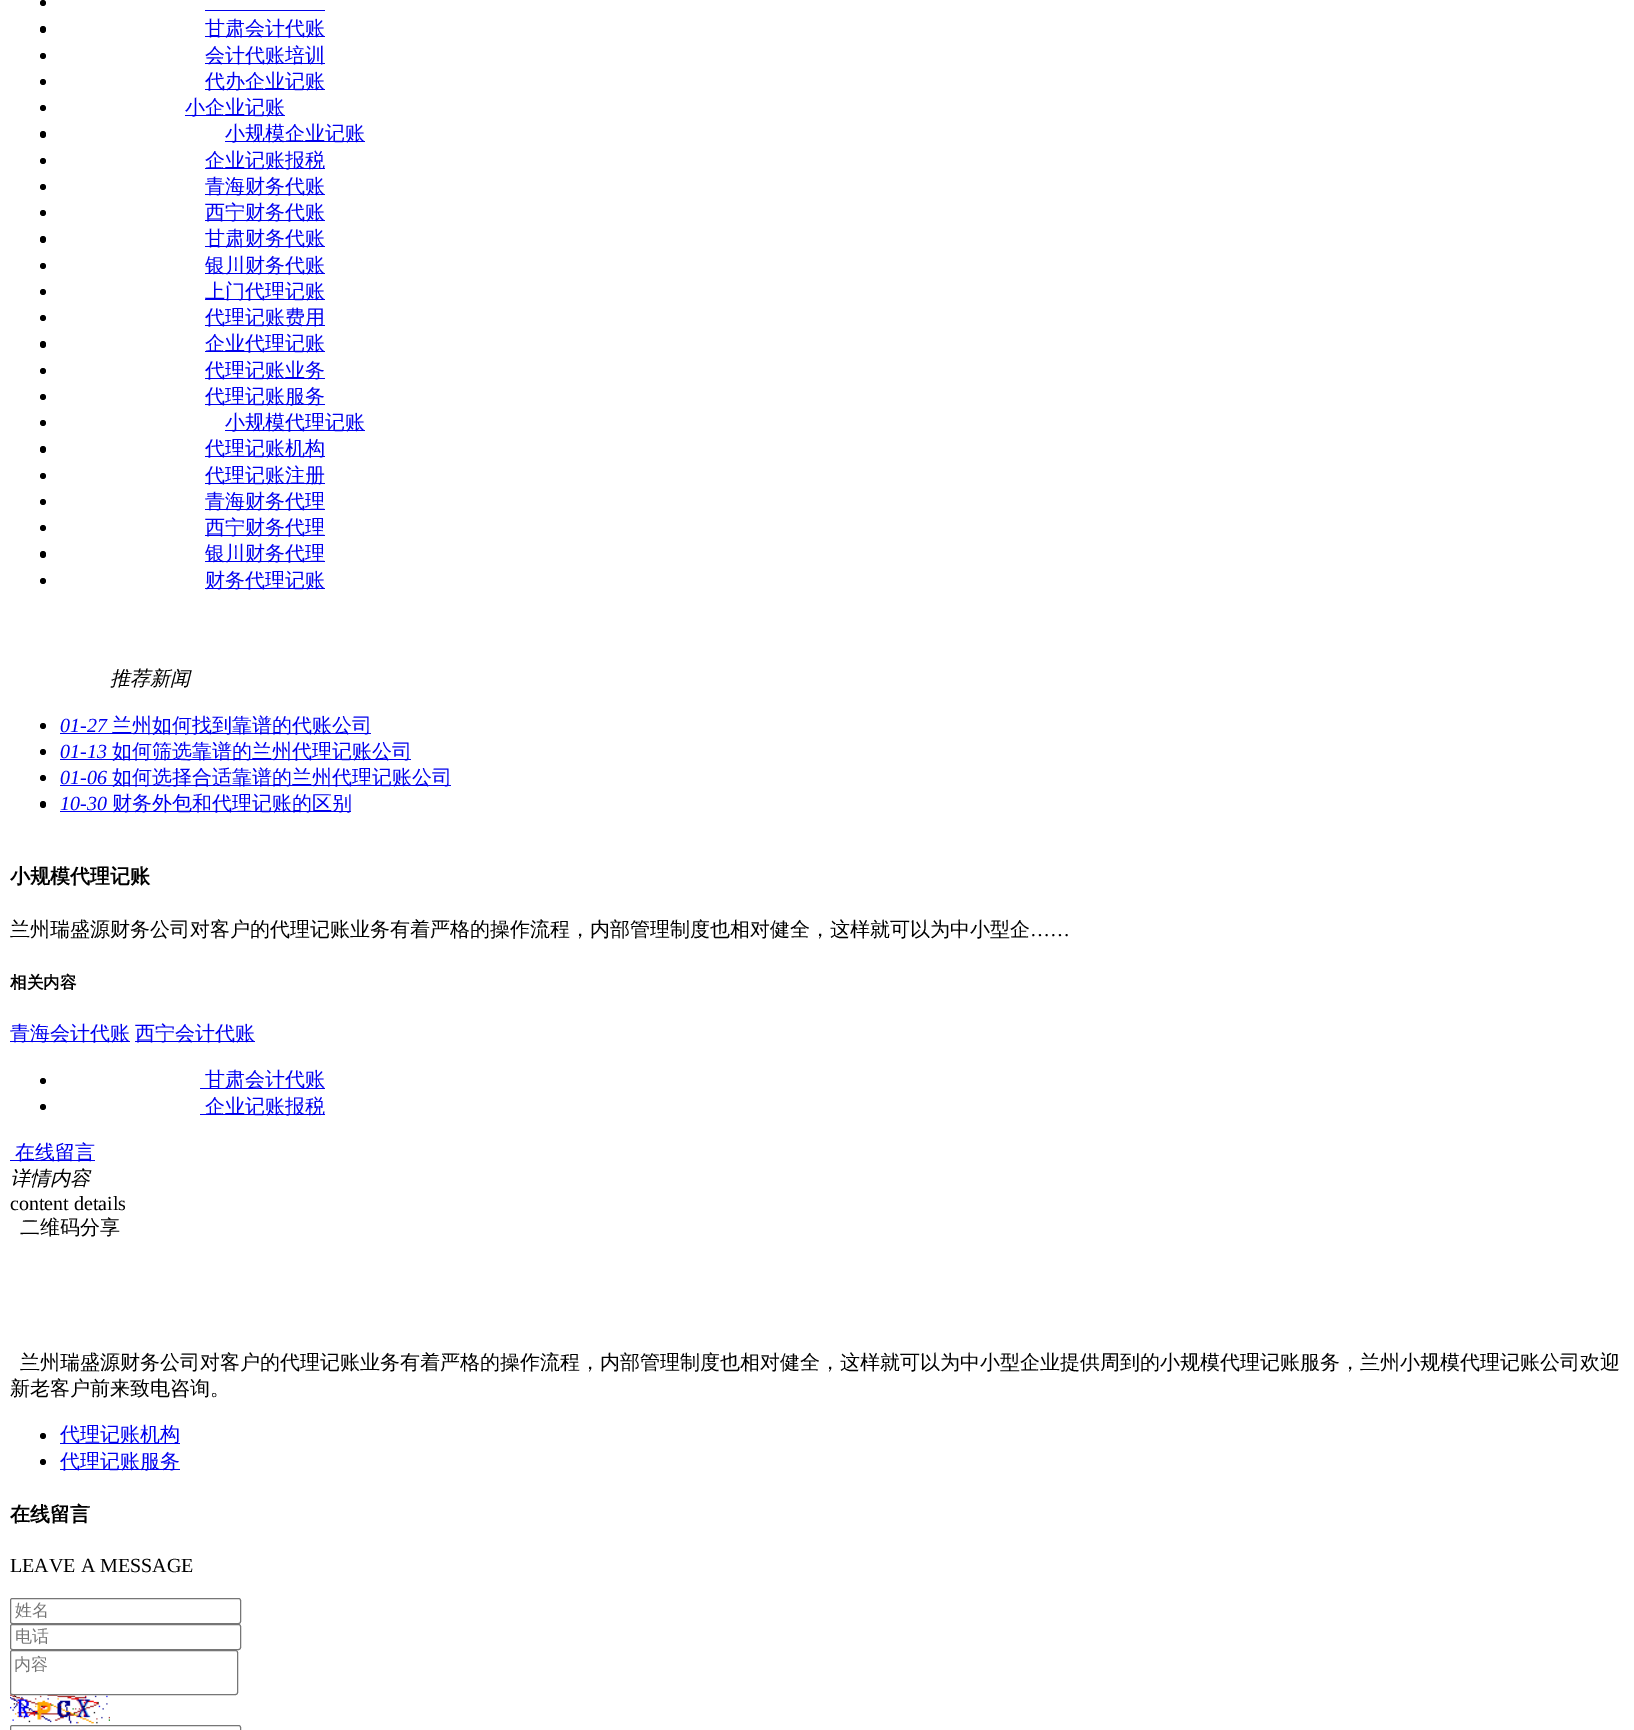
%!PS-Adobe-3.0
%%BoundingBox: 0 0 1634 1730
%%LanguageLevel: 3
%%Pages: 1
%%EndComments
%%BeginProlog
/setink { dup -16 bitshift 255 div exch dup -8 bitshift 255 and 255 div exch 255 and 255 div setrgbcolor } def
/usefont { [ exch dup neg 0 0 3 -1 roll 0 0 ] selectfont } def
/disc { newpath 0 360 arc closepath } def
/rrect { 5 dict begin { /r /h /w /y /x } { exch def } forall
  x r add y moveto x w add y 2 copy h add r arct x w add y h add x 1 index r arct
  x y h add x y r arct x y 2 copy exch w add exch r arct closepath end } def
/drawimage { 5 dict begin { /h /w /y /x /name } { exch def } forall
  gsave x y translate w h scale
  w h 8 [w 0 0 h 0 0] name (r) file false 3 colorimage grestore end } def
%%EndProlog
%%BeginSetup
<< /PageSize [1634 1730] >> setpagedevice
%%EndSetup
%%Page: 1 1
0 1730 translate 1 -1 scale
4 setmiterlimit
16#FFFFFF setink
0 0 1634 1730 rectfill
16#000000 setink
43 3 3 disc fill
16#0000EE setink
205 10 120 1 rectfill
16#000000 setink
40 26 6 7 3 rrect fill
16#0000EE setink
205 36 120 1 rectfill
/WenQuanYiZenHei-Medium 20 usefont
205 35 moveto (甘肃会计代账) show
16#000000 setink
43 56 3 disc fill
16#0000EE setink
205 63 120 1 rectfill
205 62 moveto (会计代账培训) show
16#000000 setink
43 82 3 disc fill
16#0000EE setink
205 89 120 1 rectfill
205 88 moveto (代办企业记账) show
16#000000 setink
43 108 3 disc fill
16#0000EE setink
185 115 100 1 rectfill
185 114 moveto (小企业记账) show
16#000000 setink
40 131 6 7 3 rrect fill
16#0000EE setink
225 141 140 1 rectfill
225 140 moveto (小规模企业记账) show
16#000000 setink
43 161 3 disc fill
16#0000EE setink
205 168 120 1 rectfill
205 167 moveto (企业记账报税) show
16#000000 setink
43 187 3 disc fill
16#0000EE setink
205 194 120 1 rectfill
205 193 moveto (青海财务代账) show
16#000000 setink
43 213 3 disc fill
16#0000EE setink
205 220 120 1 rectfill
205 219 moveto (西宁财务代账) show
16#000000 setink
40 236 6 7 3 rrect fill
16#0000EE setink
205 246 120 1 rectfill
205 245 moveto (甘肃财务代账) show
16#000000 setink
43 266 3 disc fill
16#0000EE setink
205 273 120 1 rectfill
205 272 moveto (银川财务代账) show
16#000000 setink
43 292 3 disc fill
16#0000EE setink
205 299 120 1 rectfill
205 298 moveto (上门代理记账) show
16#000000 setink
43 318 3 disc fill
16#0000EE setink
205 325 120 1 rectfill
205 324 moveto (代理记账费用) show
16#000000 setink
40 341 6 7 3 rrect fill
16#0000EE setink
205 351 120 1 rectfill
205 350 moveto (企业代理记账) show
16#000000 setink
43 371 3 disc fill
16#0000EE setink
205 378 120 1 rectfill
205 377 moveto (代理记账业务) show
16#000000 setink
43 397 3 disc fill
16#0000EE setink
205 404 120 1 rectfill
205 403 moveto (代理记账服务) show
16#000000 setink
43 423 3 disc fill
16#0000EE setink
225 430 140 1 rectfill
225 429 moveto (小规模代理记账) show
16#000000 setink
40 446 6 7 3 rrect fill
16#0000EE setink
205 456 120 1 rectfill
205 455 moveto (代理记账机构) show
16#000000 setink
43 476 3 disc fill
16#0000EE setink
205 483 120 1 rectfill
205 482 moveto (代理记账注册) show
16#000000 setink
43 502 3 disc fill
16#0000EE setink
205 509 120 1 rectfill
205 508 moveto (青海财务代理) show
16#000000 setink
43 528 3 disc fill
16#0000EE setink
205 535 120 1 rectfill
205 534 moveto (西宁财务代理) show
16#000000 setink
40 551 6 7 3 rrect fill
16#0000EE setink
205 561 120 1 rectfill
205 560 moveto (银川财务代理) show
16#000000 setink
43 581 3 disc fill
16#0000EE setink
205 588 120 1 rectfill
205 587 moveto (财务代理记账) show
/WenQuanYiZenHei-MediumItalic 20 usefont
16#000000 setink
110 685 moveto (推荐新闻) show
43 726 3 disc fill
/LiberationSerif-Italic 20 usefont
16#0000EE setink
60 732 moveto (01-27) show
60 733 311 1 rectfill
/WenQuanYiZenHei-Medium 20 usefont
112 732 moveto (兰州如何找到靠谱的代账公司) show
16#000000 setink
43 752 3 disc fill
/LiberationSerif-Italic 20 usefont
16#0000EE setink
60 758 moveto (01-13) show
60 759 351 1 rectfill
/WenQuanYiZenHei-Medium 20 usefont
112 758 moveto (如何筛选靠谱的兰州代理记账公司) show
16#000000 setink
43 778 3 disc fill
/LiberationSerif-Italic 20 usefont
16#0000EE setink
60 784 moveto (01-06) show
60 785 391 1 rectfill
/WenQuanYiZenHei-Medium 20 usefont
112 784 moveto (如何选择合适靠谱的兰州代理记账公司) show
16#000000 setink
40 801 6 7 3 rrect fill
/LiberationSerif-Italic 20 usefont
16#0000EE setink
60 810 moveto (10-30) show
60 811 291 1 rectfill
/WenQuanYiZenHei-Medium 20 usefont
112 810 moveto (财务外包和代理记账的区别) show
/WenQuanYiZenHei-Bold 20 usefont
16#000000 setink
10 883 moveto (小规模代理记账) show
/WenQuanYiZenHei-Medium 20 usefont
10 936 moveto (兰州瑞盛源财务公司对客户的代理记账业务有着严格的操作流程，内部管理制度也相对健全，这样就可以为中小型企) show
/LiberationSerif-Regular 20 usefont
1030 936 moveto (……) show
/WenQuanYiZenHei-Bold 16.5 usefont
10 988 moveto (相关内容) show
16#0000EE setink
10 1041 120 1 rectfill
/WenQuanYiZenHei-Medium 20 usefont
10 1040 moveto (青海会计代账) show
135 1041 120 1 rectfill
135 1040 moveto (西宁会计代账) show
16#000000 setink
43 1081 3 disc fill
16#0000EE setink
200 1088 125 1 rectfill
205 1086 moveto (甘肃会计代账) show
16#000000 setink
43 1107 3 disc fill
16#0000EE setink
200 1114 125 1 rectfill
205 1113 moveto (企业记账报税) show
10 1160 85 1 rectfill
15 1159 moveto (在线留言) show
/WenQuanYiZenHei-MediumItalic 20 usefont
16#000000 setink
10 1185 moveto (详情内容) show
/LiberationSerif-Regular 20 usefont
10 1210 moveto (content details) show
/WenQuanYiZenHei-Medium 20 usefont
[
    [(二维码分享) 20 1234]
    [(兰州瑞盛源财务公司对客户的代理记账业务有着严格的操作流程，内部管理制度也相对健全，这样就可以为中小型企业提供周到的小规模代理记账服务，兰州小规模代理记账公司欢迎) 20 1369]
    [(新老客户前来致电咨询。) 10 1395]
] { aload pop moveto show } forall
43 1436 3 disc fill
16#0000EE setink
60 1443 120 1 rectfill
60 1441 moveto (代理记账机构) show
16#000000 setink
43 1462 3 disc fill
16#0000EE setink
60 1469 120 1 rectfill
60 1468 moveto (代理记账服务) show
/WenQuanYiZenHei-Bold 20 usefont
16#000000 setink
10 1521 moveto (在线留言) show
/LiberationSerif-Regular 20 usefont
10 1572 moveto (LEAVE A MESSAGE) show
16#767676 setink
10.5 1598.5 230 25 2 rrect stroke
/WenQuanYiZenHei-Medium 17 usefont
16#757575 setink
15 1616 moveto (姓名) show
16#767676 setink
10.5 1624.5 230 25 2 rrect stroke
16#757575 setink
15 1642 moveto (电话) show
(img1.raw) 10 1694 100 30 drawimage
16#FFFFFF setink
10.5 1650.5 227 44 2 rrect gsave fill grestore
16#767676 setink
stroke
16#757575 setink
14 1670 moveto (内容) show
16#767676 setink
10.5 1725.5 230 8 2 rrect stroke
showpage
%%EOF
